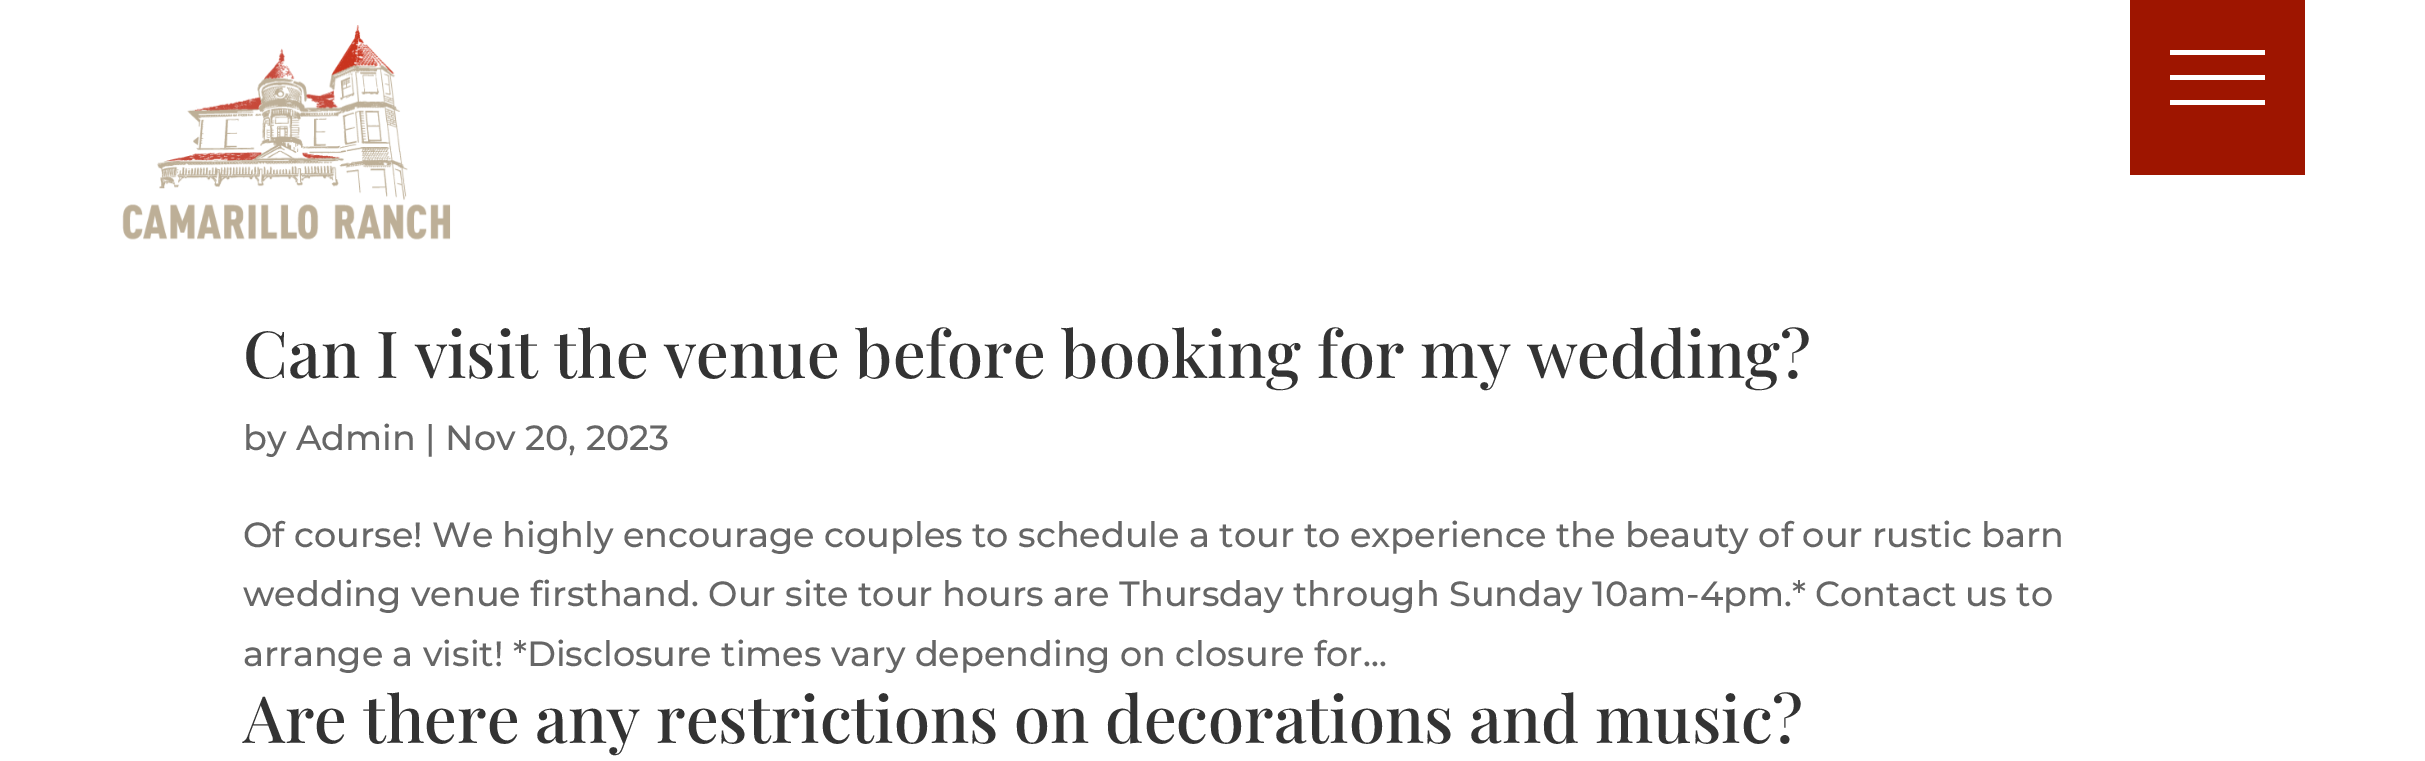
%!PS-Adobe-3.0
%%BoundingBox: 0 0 2425 761
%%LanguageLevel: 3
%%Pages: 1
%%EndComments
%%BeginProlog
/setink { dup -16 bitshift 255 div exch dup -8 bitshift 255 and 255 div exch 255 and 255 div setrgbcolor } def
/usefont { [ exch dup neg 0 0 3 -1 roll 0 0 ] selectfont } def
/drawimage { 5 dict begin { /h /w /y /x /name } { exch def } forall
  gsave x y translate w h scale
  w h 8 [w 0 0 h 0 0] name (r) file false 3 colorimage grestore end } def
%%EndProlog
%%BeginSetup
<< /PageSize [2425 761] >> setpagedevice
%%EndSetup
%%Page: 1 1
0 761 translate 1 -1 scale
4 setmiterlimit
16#FFFFFF setink
0 0 2425 761 rectfill
(img1.raw) 122 25 329 215 drawimage
[
    [2130 0 175 175 16#9E1500]
    [2170 50 95 5 16#FFFFFF]
    [2170 75 95 5 16#FFFFFF]
    [2170 100 95 5 16#FFFFFF]
] { aload pop setink rectfill } forall
/PlayfairDisplay-Medium 65 usefont
16#333333 setink
243 378 moveto (Can I visit the venue before booking for my wedding?) show
/Montserrat-Medium 35 usefont
16#666666 setink
[
    [(by Admin | Nov 20, 2023) 243 450]
    [(Of course! We highly encourage couples to schedule a tour to experience the beauty of our rustic barn) 243 547]
    [(wedding venue firsthand. Our site tour hours are Thursday through Sunday 10am-4pm.* Contact us to) 243 606]
    [(arrange a visit! *Disclosure times vary depending on closure for...) 243 666]
] { aload pop moveto show } forall
/PlayfairDisplay-Medium 65 usefont
16#333333 setink
243 743 moveto (Are there any restrictions on decorations and music?) show
showpage
%%EOF
